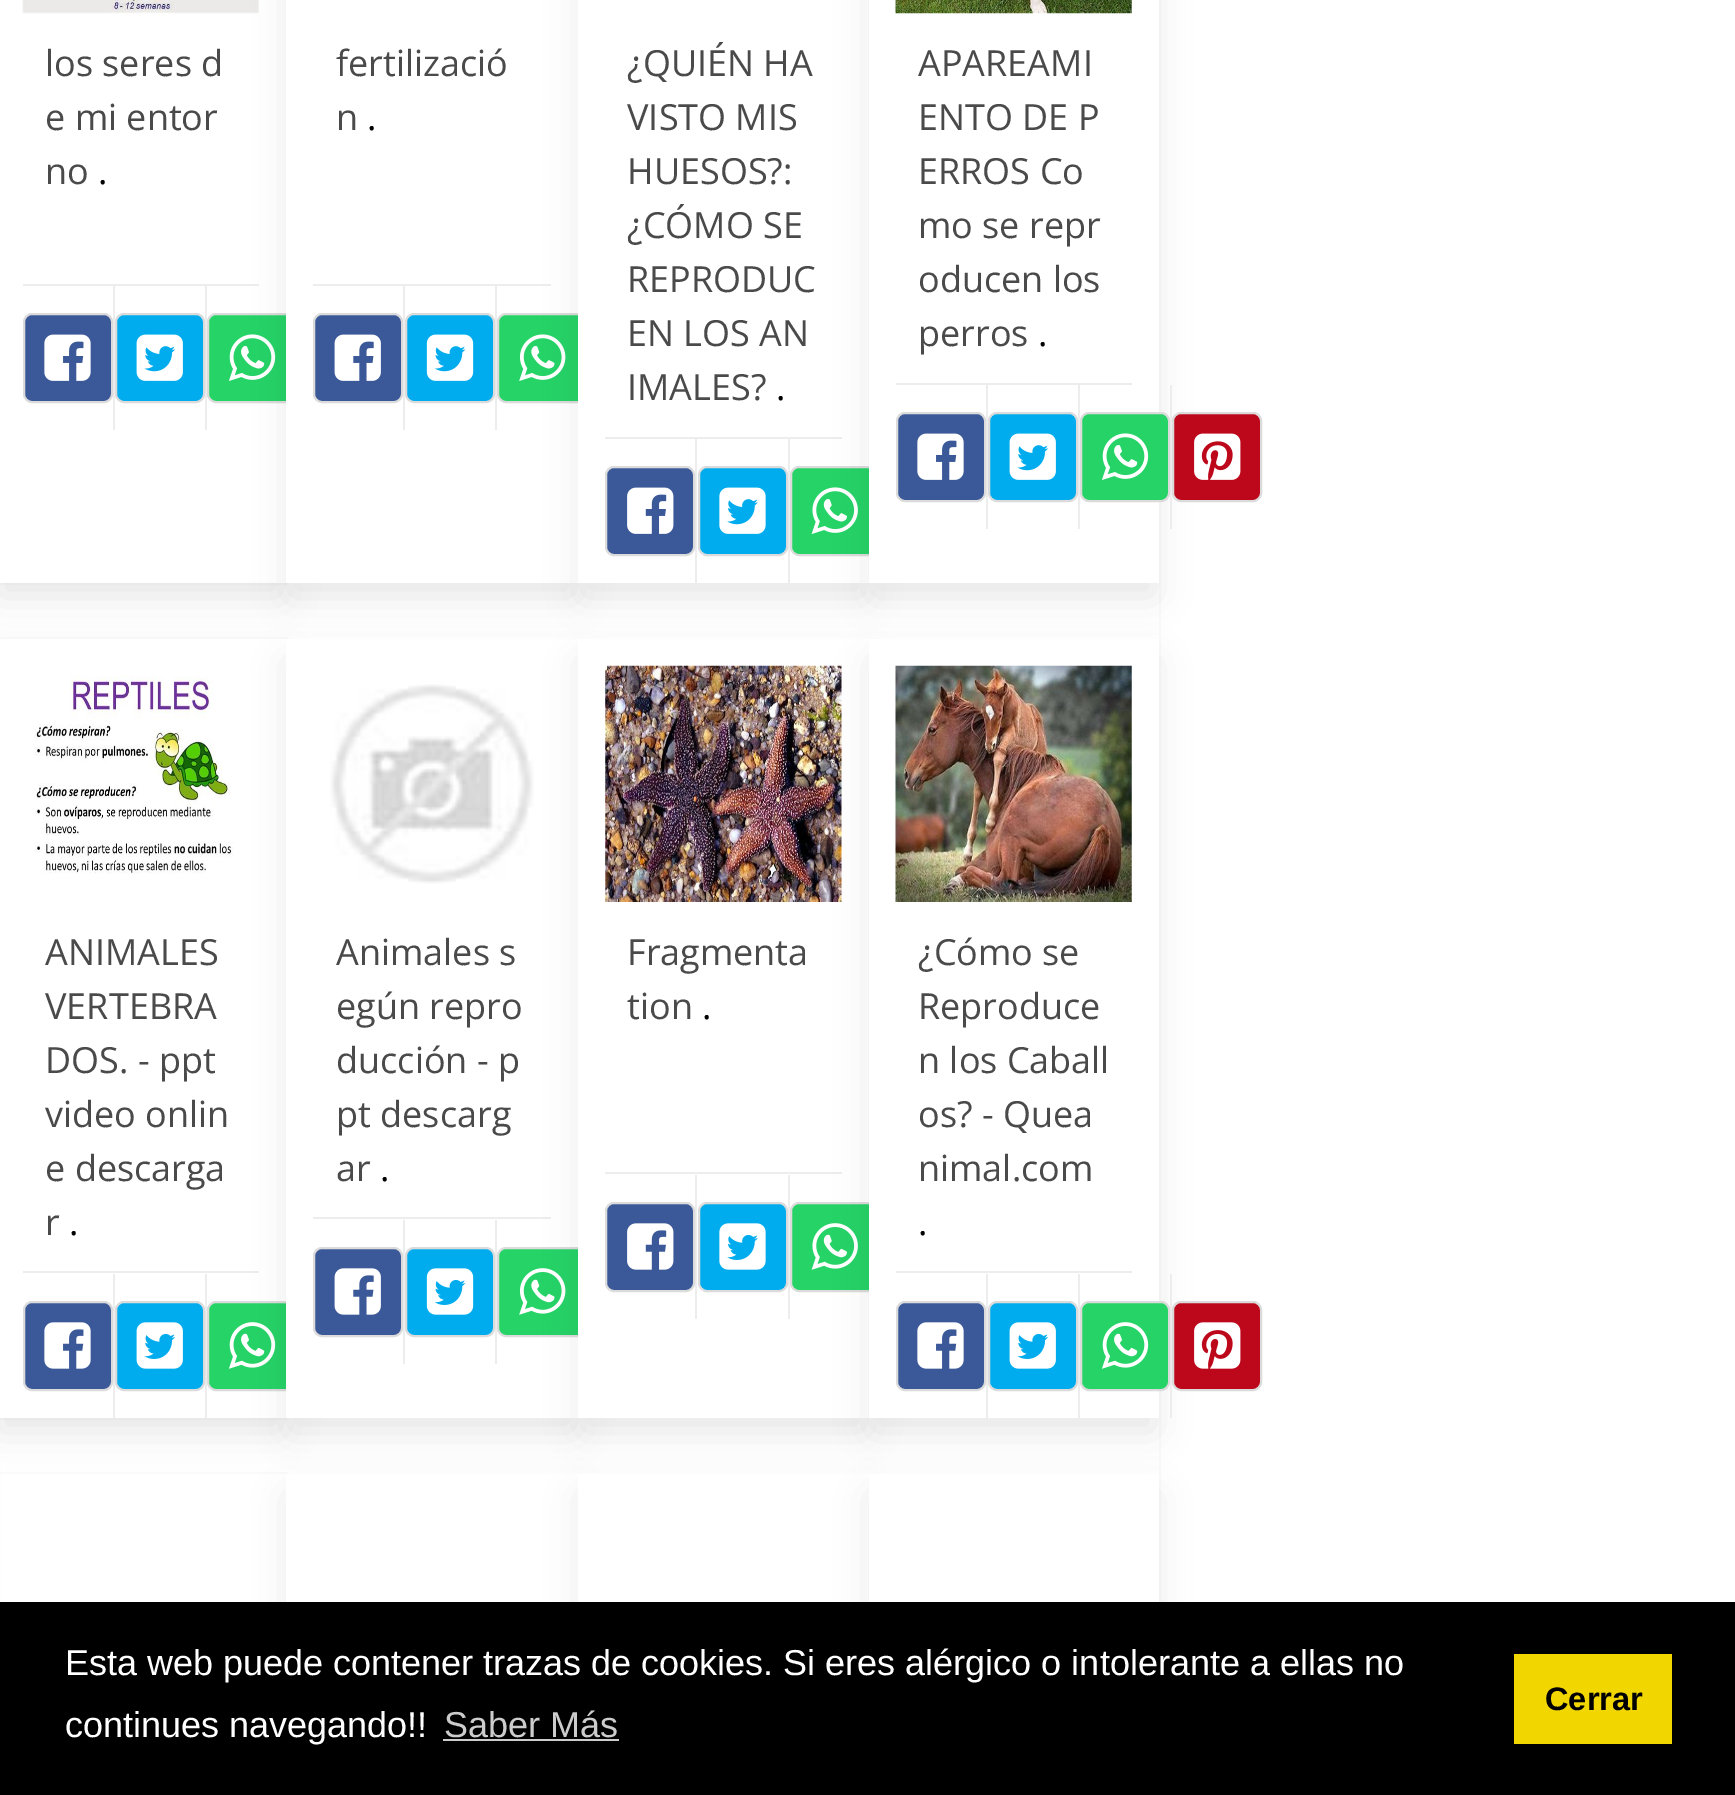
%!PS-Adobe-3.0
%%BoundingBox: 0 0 1735 1795
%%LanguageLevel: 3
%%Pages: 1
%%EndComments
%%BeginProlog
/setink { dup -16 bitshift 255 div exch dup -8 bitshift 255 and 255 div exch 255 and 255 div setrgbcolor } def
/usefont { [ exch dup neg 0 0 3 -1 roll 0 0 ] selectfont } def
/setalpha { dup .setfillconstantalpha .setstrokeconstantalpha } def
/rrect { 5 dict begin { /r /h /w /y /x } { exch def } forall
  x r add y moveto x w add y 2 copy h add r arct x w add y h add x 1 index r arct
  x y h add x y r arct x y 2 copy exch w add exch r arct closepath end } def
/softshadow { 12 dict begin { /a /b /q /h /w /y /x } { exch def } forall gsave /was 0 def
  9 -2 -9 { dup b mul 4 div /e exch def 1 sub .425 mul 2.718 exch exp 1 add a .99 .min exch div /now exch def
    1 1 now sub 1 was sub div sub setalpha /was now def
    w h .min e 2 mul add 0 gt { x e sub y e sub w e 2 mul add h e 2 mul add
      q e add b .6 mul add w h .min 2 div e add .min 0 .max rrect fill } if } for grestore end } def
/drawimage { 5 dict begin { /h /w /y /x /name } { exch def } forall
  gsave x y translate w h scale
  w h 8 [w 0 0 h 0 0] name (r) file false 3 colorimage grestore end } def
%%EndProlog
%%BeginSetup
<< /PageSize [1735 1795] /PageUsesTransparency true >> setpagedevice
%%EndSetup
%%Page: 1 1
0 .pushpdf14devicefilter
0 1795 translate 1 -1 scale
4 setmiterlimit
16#FFFFFF setink
0 0 1735 1795 rectfill
16#FAFAFA setink
2 setlinewidth
-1 -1 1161 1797 rectstroke
-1 -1 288 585 rectstroke
16#0A0A0A setink
0 -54 281 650 0 18 0.1 softshadow
16#FFFFFF setink
0 0 286 583 rectfill
(img1.raw) 22 0 237 14 drawimage
/OpenSans-Regular 36 usefont
16#4A4A4A setink
[
    [(los seres d) 45 76]
    [(e mi entor) 45 130]
    [(no) 45 184]
] { aload pop moveto show } forall
16#000000 setink
98 184 moveto (.) show
16#EDEDED setink
23 284 236 2 rectfill
113 286 2 144 rectfill
16#3B5998 setink
24 314 88 88 8 rrect gsave fill grestore
16#DBDBDB setink
stroke
(img2.raw) 44 334 47 47 drawimage
16#EDEDED setink
205 286 2 144 rectfill
16#00ACED setink
116 314 88 88 8 rrect gsave fill grestore
16#DBDBDB setink
stroke
(img3.raw) 136 334 47 47 drawimage
16#25D366 setink
208 314 88 88 8 rrect gsave fill grestore
16#DBDBDB setink
stroke
(img4.raw) 229 334 47 47 drawimage
16#0A0A0A setink
290 -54 284 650 0 18 0.1 softshadow
16#FFFFFF setink
286 0 292 583 rectfill
16#4A4A4A setink
336 76 moveto (fertilizació) show
336 130 moveto (n) show
16#000000 setink
367 130 moveto (.) show
16#EDEDED setink
313 284 238 2 rectfill
403 286 2 144 rectfill
16#3B5998 setink
314 314 88 88 8 rrect gsave fill grestore
16#DBDBDB setink
stroke
(img5.raw) 334 334 47 47 drawimage
16#EDEDED setink
495 286 2 144 rectfill
16#00ACED setink
406 314 88 88 8 rrect gsave fill grestore
16#DBDBDB setink
stroke
(img6.raw) 426 334 48 47 drawimage
16#25D366 setink
498 314 88 88 8 rrect gsave fill grestore
16#DBDBDB setink
stroke
(img7.raw) 519 334 47 47 drawimage
16#0A0A0A setink
583 -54 281 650 0 18 0.1 softshadow
16#FFFFFF setink
578 0 291 583 rectfill
16#4A4A4A setink
[
    [(¿QUIÉN HA) 627 76]
    [(VISTO MIS) 627 130]
    [(HUESOS?:) 627 184]
    [(¿CÓMO SE) 627 238]
    [(REPRODUC) 627 292]
    [(EN LOS AN) 627 346]
    [(IMALES?) 627 400]
] { aload pop moveto show } forall
16#000000 setink
776 400 moveto (.) show
16#EDEDED setink
605 437 237 2 rectfill
695 439 2 144 rectfill
16#3B5998 setink
606 467 88 88 8 rrect gsave fill grestore
16#DBDBDB setink
stroke
(img8.raw) 627 487 47 47 drawimage
16#EDEDED setink
788 439 2 144 rectfill
16#00ACED setink
699 467 88 88 8 rrect gsave fill grestore
16#DBDBDB setink
stroke
(img9.raw) 719 487 47 47 drawimage
16#25D366 setink
791 467 88 88 8 rrect gsave fill grestore
16#DBDBDB setink
stroke
(img10.raw) 811 487 47 47 drawimage
16#0A0A0A setink
873 -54 281 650 0 18 0.1 softshadow
16#FFFFFF setink
869 0 290 583 rectfill
(img11.raw) 895 0 237 14 drawimage
16#4A4A4A setink
[
    [(APAREAMI) 918 76]
    [(ENTO DE P) 918 130]
    [(ERROS Co) 918 184]
    [(mo se repr) 918 238]
    [(oducen los) 918 292]
    [(perros) 918 346]
] { aload pop moveto show } forall
16#000000 setink
1038 346 moveto (.) show
16#EDEDED setink
896 383 236 2 rectfill
986 385 2 144 rectfill
16#3B5998 setink
897 413 88 88 8 rrect gsave fill grestore
16#DBDBDB setink
stroke
(img2.raw) 917 433 47 47 drawimage
16#EDEDED setink
1078 385 2 144 rectfill
16#00ACED setink
989 413 88 88 8 rrect gsave fill grestore
16#DBDBDB setink
stroke
(img3.raw) 1009 433 47 47 drawimage
16#EDEDED setink
1170 385 2 144 rectfill
16#25D366 setink
1081 413 88 88 8 rrect gsave fill grestore
16#DBDBDB setink
stroke
(img4.raw) 1102 433 47 47 drawimage
16#BD081C setink
1173 413 88 88 8 rrect gsave fill grestore
16#DBDBDB setink
stroke
(img12.raw) 1194 433 47 47 drawimage
16#FAFAFA setink
-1 638 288 781 rectstroke
16#0A0A0A setink
0 662 281 769 0 18 0.1 softshadow
16#FFFFFF setink
0 639 286 779 rectfill
(img13.raw) 34 676 200 198 drawimage
16#4A4A4A setink
[
    [(ANIMALES) 45 965]
    [(VERTEBRA) 45 1019]
    [(DOS. - ppt) 45 1073]
    [(video onlin) 45 1127]
    [(e descarga) 45 1181]
    [(r) 45 1235]
] { aload pop moveto show } forall
16#000000 setink
69 1235 moveto (.) show
16#EDEDED setink
23 1271 236 2 rectfill
113 1274 2 144 rectfill
16#3B5998 setink
24 1302 88 88 8 rrect gsave fill grestore
16#DBDBDB setink
stroke
(img14.raw) 44 1322 47 47 drawimage
16#EDEDED setink
205 1274 2 144 rectfill
16#00ACED setink
116 1302 88 88 8 rrect gsave fill grestore
16#DBDBDB setink
stroke
(img15.raw) 136 1322 47 47 drawimage
16#25D366 setink
208 1302 88 88 8 rrect gsave fill grestore
16#DBDBDB setink
stroke
(img16.raw) 228 1322 48 47 drawimage
16#0A0A0A setink
290 662 284 769 0 18 0.1 softshadow
16#FFFFFF setink
286 639 292 779 rectfill
(img17.raw) 330 684 204 200 drawimage
16#4A4A4A setink
[
    [(Animales s) 336 965]
    [(egún repro) 336 1019]
    [(ducción - p) 336 1073]
    [(pt descarg) 336 1127]
    [(ar) 336 1181]
] { aload pop moveto show } forall
16#000000 setink
380 1181 moveto (.) show
16#EDEDED setink
313 1217 238 2 rectfill
403 1220 2 144 rectfill
16#3B5998 setink
314 1248 88 88 8 rrect gsave fill grestore
16#DBDBDB setink
stroke
(img18.raw) 334 1268 47 47 drawimage
16#EDEDED setink
495 1220 2 144 rectfill
16#00ACED setink
406 1248 88 88 8 rrect gsave fill grestore
16#DBDBDB setink
stroke
(img19.raw) 426 1268 48 47 drawimage
16#25D366 setink
498 1248 88 88 8 rrect gsave fill grestore
16#DBDBDB setink
stroke
(img20.raw) 519 1268 47 47 drawimage
16#0A0A0A setink
583 662 281 769 0 18 0.1 softshadow
16#FFFFFF setink
578 639 291 779 rectfill
(img21.raw) 605 665 237 237 drawimage
16#4A4A4A setink
627 965 moveto (Fragmenta) show
627 1019 moveto (tion) show
16#000000 setink
702 1019 moveto (.) show
16#EDEDED setink
605 1172 237 2 rectfill
695 1175 2 144 rectfill
16#3B5998 setink
606 1203 88 88 8 rrect gsave fill grestore
16#DBDBDB setink
stroke
(img22.raw) 627 1223 47 47 drawimage
16#EDEDED setink
788 1175 2 144 rectfill
16#00ACED setink
699 1203 88 88 8 rrect gsave fill grestore
16#DBDBDB setink
stroke
(img23.raw) 719 1223 47 47 drawimage
16#25D366 setink
791 1203 88 88 8 rrect gsave fill grestore
16#DBDBDB setink
stroke
(img24.raw) 811 1223 47 47 drawimage
16#0A0A0A setink
873 662 281 769 0 18 0.1 softshadow
16#FFFFFF setink
869 639 290 779 rectfill
(img25.raw) 895 665 237 237 drawimage
16#4A4A4A setink
[
    [(¿Cómo se) 918 965]
    [(Reproduce) 918 1019]
    [(n los Caball) 918 1073]
    [(os? - Quea) 918 1127]
    [(nimal.com) 918 1181]
] { aload pop moveto show } forall
16#000000 setink
918 1235 moveto (.) show
16#EDEDED setink
896 1271 236 2 rectfill
986 1274 2 144 rectfill
16#3B5998 setink
897 1302 88 88 8 rrect gsave fill grestore
16#DBDBDB setink
stroke
(img14.raw) 917 1322 47 47 drawimage
16#EDEDED setink
1078 1274 2 144 rectfill
16#00ACED setink
989 1302 88 88 8 rrect gsave fill grestore
16#DBDBDB setink
stroke
(img15.raw) 1009 1322 47 47 drawimage
16#EDEDED setink
1170 1274 2 144 rectfill
16#25D366 setink
1081 1302 88 88 8 rrect gsave fill grestore
16#DBDBDB setink
stroke
(img16.raw) 1101 1322 48 47 drawimage
16#BD081C setink
1173 1302 88 88 8 rrect gsave fill grestore
16#DBDBDB setink
stroke
(img26.raw) 1194 1322 47 47 drawimage
16#FAFAFA setink
-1 1473 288 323 rectstroke
16#0A0A0A setink
290 1496 284 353 0 18 0.1 softshadow
16#FFFFFF setink
286 1474 292 128 rectfill
16#0A0A0A setink
583 1496 281 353 0 18 0.1 softshadow
16#FFFFFF setink
578 1474 291 128 rectfill
16#0A0A0A setink
873 1496 281 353 0 18 0.1 softshadow
16#FFFFFF setink
869 1474 290 128 rectfill
16#000000 setink
0 1602 1735 193 rectfill
/LiberationSans-Regular 36 usefont
16#FFFFFF setink
65 1675 moveto (Esta web puede contener trazas de cookies. Si eres alérgico o intolerante a ellas no) show
65 1737 moveto (continues navegando!!) show
16#CCCCCC setink
444 1737 moveto (Saber Más) show
443 1739 176 2 rectfill
16#F1D600 setink
1514 1654 158 90 rectfill
/LiberationSans-Bold 32.5 usefont
16#000000 setink
1545 1710 moveto (Cerrar) show
.poppdf14devicefilter showpage
%%EOF
